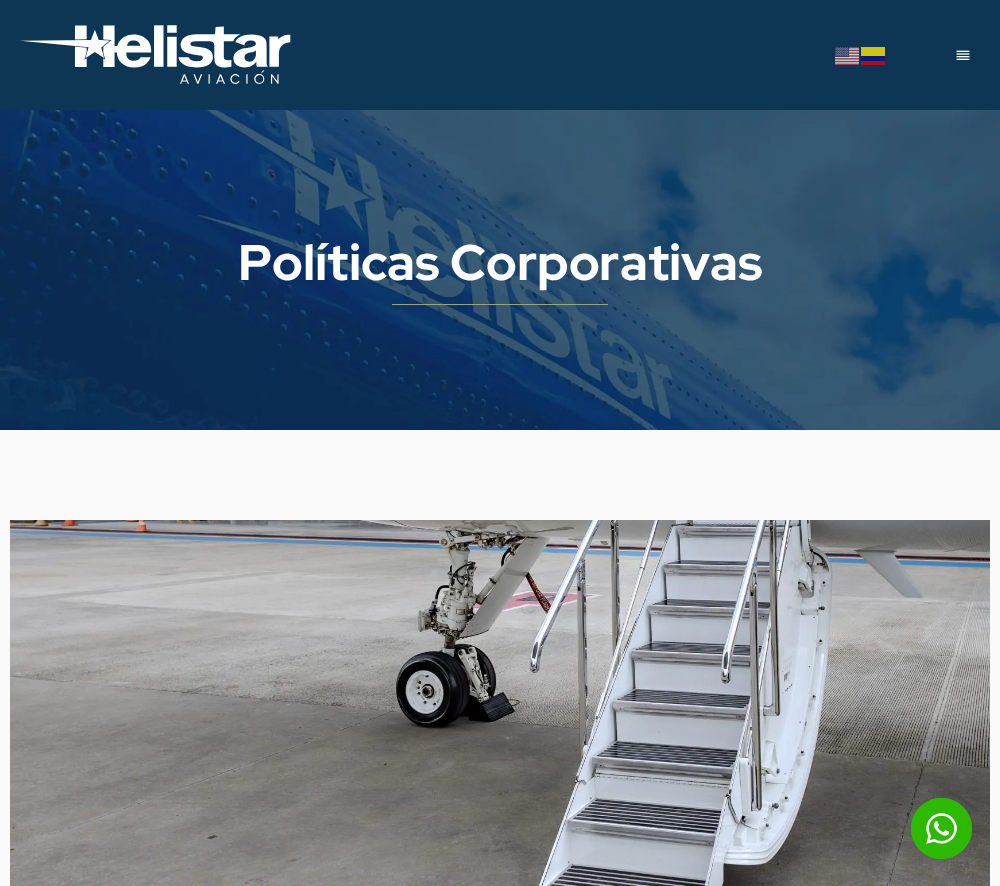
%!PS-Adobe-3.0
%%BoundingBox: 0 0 1000 886
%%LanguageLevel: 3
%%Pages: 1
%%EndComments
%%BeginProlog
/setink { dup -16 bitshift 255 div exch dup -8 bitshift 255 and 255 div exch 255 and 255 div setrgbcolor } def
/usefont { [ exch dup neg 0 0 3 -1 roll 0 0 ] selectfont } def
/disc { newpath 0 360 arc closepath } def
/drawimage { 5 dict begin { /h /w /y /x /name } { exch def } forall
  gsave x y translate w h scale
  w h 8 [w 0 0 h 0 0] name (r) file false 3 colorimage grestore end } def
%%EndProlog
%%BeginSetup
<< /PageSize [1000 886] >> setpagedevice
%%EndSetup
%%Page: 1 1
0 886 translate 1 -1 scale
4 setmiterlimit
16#FAFAFA setink
0 0 1000 886 rectfill
16#0D3655 setink
0 0 1000 110 rectfill
(img1.raw) 20 25 271 59 drawimage
(img2.raw) 835 47 24 18 drawimage
[
    [861 47 24 9 16#CFC411]
    [861 56 24 5 16#031B83]
    [861 61 24 4 16#B10B1E]
] { aload pop setink rectfill } forall
(img3.raw) 956 50 14 10 drawimage
(img4.raw) 0 110 1000 320 drawimage
/RedHatDisplay-ExtraBold 50 usefont
16#FFFFFF setink
238 280 moveto (Políticas Corporativas) show
16#9FA277 setink
392 304 216 1 rectfill
(img5.raw) 10 520 980 366 drawimage
16#2CB900 setink
941.5 828.5 30.5 disc fill
(img6.raw) 926 813 31 31 drawimage
showpage
%%EOF
